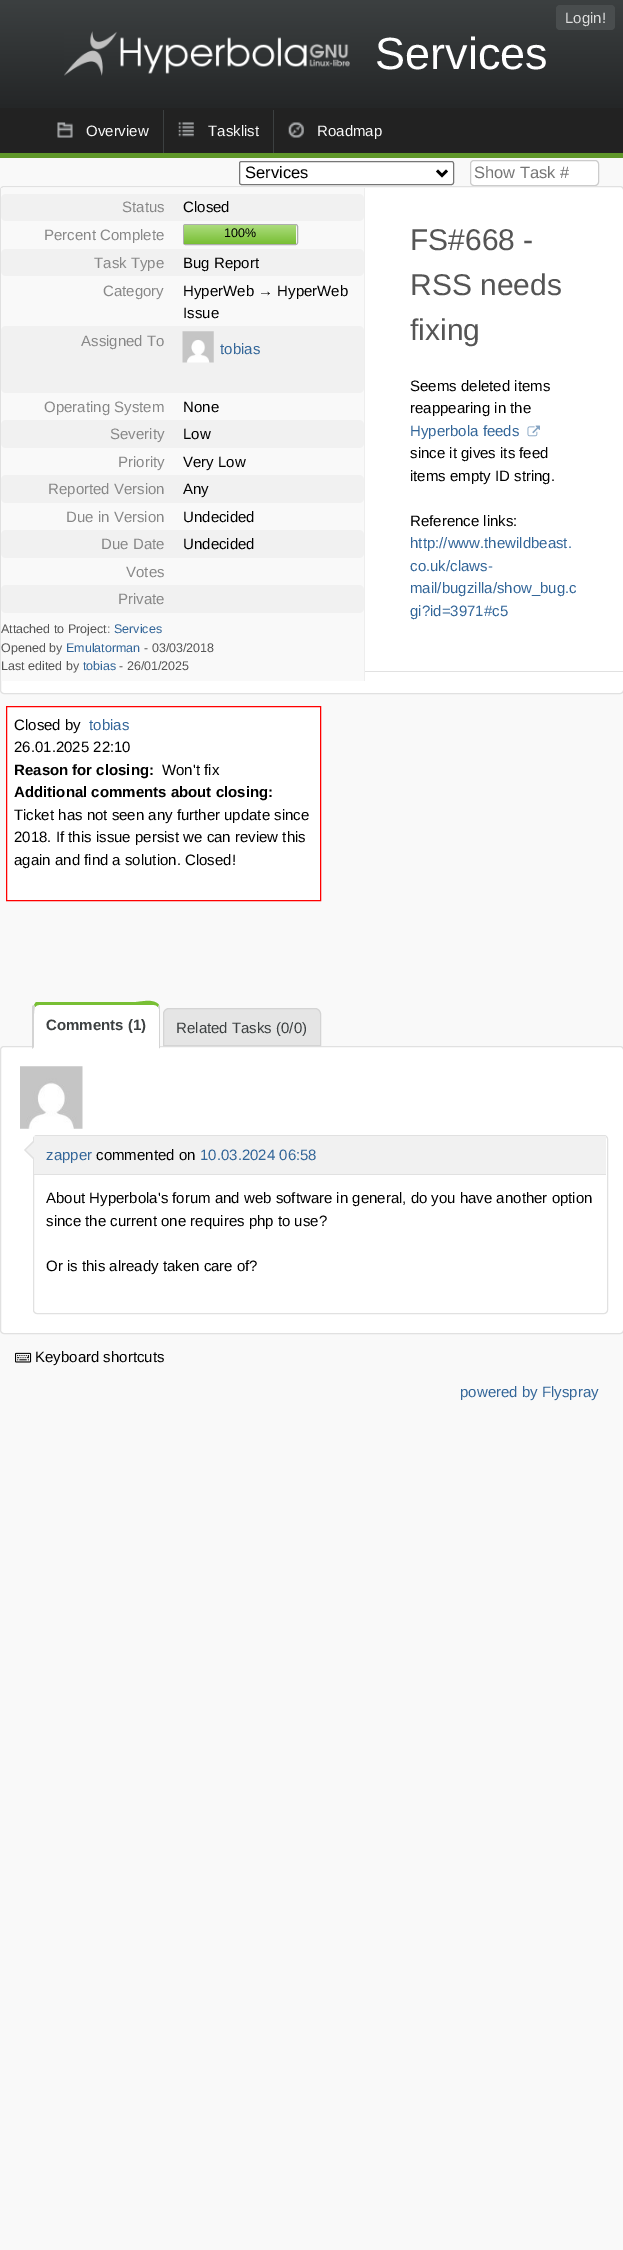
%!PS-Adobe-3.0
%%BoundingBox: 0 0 623 2250
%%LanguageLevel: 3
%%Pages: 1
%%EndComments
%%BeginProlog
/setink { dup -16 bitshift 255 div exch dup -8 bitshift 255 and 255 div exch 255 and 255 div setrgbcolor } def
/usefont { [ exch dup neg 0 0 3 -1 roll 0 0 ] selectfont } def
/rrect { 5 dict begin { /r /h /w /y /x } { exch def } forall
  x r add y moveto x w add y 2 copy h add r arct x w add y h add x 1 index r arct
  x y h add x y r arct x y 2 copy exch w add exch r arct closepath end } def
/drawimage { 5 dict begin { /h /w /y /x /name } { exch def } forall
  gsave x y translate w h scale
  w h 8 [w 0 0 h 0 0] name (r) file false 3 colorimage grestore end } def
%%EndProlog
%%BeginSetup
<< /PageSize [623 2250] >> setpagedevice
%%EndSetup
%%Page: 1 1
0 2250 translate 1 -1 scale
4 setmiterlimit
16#F9F9F9 setink
0 0 623 2250 rectfill
gsave 0 0 moveto 623 0 lineto 623 108 lineto 0 108 lineto closepath clip newpath
<< /ShadingType 2 /ColorSpace /DeviceRGB /Coords [312 0 312 108] /Extend [true true] /Function << /FunctionType 2 /Domain [0 1] /C0 [0.235 0.251 0.255] /C1 [0.141 0.149 0.153] /N 1 >> >> shfill grestore
16#494D4E setink
556 5 59 25 4 rrect fill
/LiberationSans-Regular 15 usefont
16#DDDDDD setink
565 23 moveto (Login!) show
(img1.raw) 64 31 286 45 drawimage
/LiberationSans-Regular 45 usefont
16#FFFFFF setink
375 69 moveto (Services) show
16#222222 setink
0 108 623 45 rectfill
16#5F9729 setink
0 153 623 5 rectfill
(img2.raw) 57 122 16 16 drawimage
/LiberationSans-Regular 15 usefont
16#F9F9F9 setink
86 136 moveto (Overview) show
(img3.raw) 178 122 16 15 drawimage
16#3C4041 setink
163 110 1 43 rectfill
16#F9F9F9 setink
208 136 moveto (Tasklist) show
(img4.raw) 288 122 16 16 drawimage
16#3C4041 setink
273 110 1 43 rectfill
16#F9F9F9 setink
317 136 moveto (Roadmap) show
16#FFFFFF setink
239.5 161.5 214 23 2 rrect gsave fill grestore
16#767676 setink
stroke
16#000000 setink
2.5 setlinewidth
437 170.5 moveto 442 175.5 lineto 447 170.5 lineto stroke
/LiberationSans-Regular 16.5 usefont
245 178 moveto (Services) show
16#FFFFFF setink
470.5 160.5 128 25 3.5 rrect gsave fill grestore
16#CCCCCC setink
1 setlinewidth
stroke
16#757575 setink
474 178 moveto (Show Task #) show
16#FFFFFF setink
0.5 186.5 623 507 3.5 rrect gsave fill grestore
16#E1E1E1 setink
stroke
16#F9F9F9 setink
1 188 363 493 rectfill
16#EEEEEE setink
364 188 1 493 rectfill
16#F1F1F1 setink
1 194 363 27 5 rrect fill
/LiberationSans-Regular 15 usefont
16#888888 setink
122 212 moveto (Status) show
16#000000 setink
183 212 moveto (Closed) show
16#888888 setink
44 240 moveto (Percent Complete) show
16#AEAEAE setink
183.5 224.5 114 20 2 rrect stroke
gsave 184 225 moveto 296 225 lineto 296 244 lineto 184 244 lineto closepath clip newpath
<< /ShadingType 2 /ColorSpace /DeviceRGB /Coords [240 225 240 244] /Extend [true true] /Function << /FunctionType 2 /Domain [0 1] /C0 [0.675 0.863 0.49] /C1 [0.471 0.749 0.204] /N 1 >> >> shfill grestore
/LiberationSans-Regular 12.5 usefont
16#000000 setink
224 237 moveto (100%) show
16#F1F1F1 setink
1 249 363 27 5 rrect fill
/LiberationSans-Regular 15 usefont
16#888888 setink
94 268 moveto (Task Type) show
16#000000 setink
183 268 moveto (Bug Report) show
16#888888 setink
103 296 moveto (Category) show
16#000000 setink
183 296 moveto (HyperWeb → HyperWeb) show
183 318 moveto (Issue) show
16#F1F1F1 setink
1 326 363 67 5 rrect fill
16#888888 setink
81 346 moveto (Assigned To) show
(img5.raw) 182 331 32 32 drawimage
16#336699 setink
220 354 moveto (tobias) show
16#888888 setink
44 412 moveto (Operating System) show
16#000000 setink
183 412 moveto (None) show
16#F1F1F1 setink
1 420 363 28 5 rrect fill
16#888888 setink
110 439 moveto (Severity) show
16#000000 setink
183 439 moveto (Low) show
16#888888 setink
118 467 moveto (Priority) show
16#000000 setink
183 467 moveto (Very Low) show
16#F1F1F1 setink
1 475 363 28 5 rrect fill
16#888888 setink
48 494 moveto (Reported Version) show
16#000000 setink
183 494 moveto (Any) show
16#888888 setink
66 522 moveto (Due in Version) show
16#000000 setink
183 522 moveto (Undecided) show
16#F1F1F1 setink
1 530 363 28 5 rrect fill
16#888888 setink
101 549 moveto (Due Date) show
16#000000 setink
183 549 moveto (Undecided) show
16#888888 setink
126 577 moveto (Votes) show
16#F1F1F1 setink
1 585 363 28 5 rrect fill
16#888888 setink
118 604 moveto (Private) show
/LiberationSans-Regular 12.5 usefont
16#555555 setink
1 633 moveto (Attached to Project:) show
16#336699 setink
114 633 moveto (Services) show
16#555555 setink
1 652 moveto (Opened by) show
16#336699 setink
66 652 moveto (Emulatorman) show
16#555555 setink
144 652 moveto (- 03/03/2018) show
1 670 moveto (Last edited by) show
16#336699 setink
83 670 moveto (tobias) show
16#555555 setink
119 670 moveto (- 26/01/2025) show
/LiberationSans-Regular 30 usefont
[
    [(FS#668 -) 410 250]
    [(RSS needs) 410 295]
    [(fixing) 410 340]
] { aload pop moveto show } forall
/LiberationSans-Regular 15 usefont
16#000000 setink
410 391 moveto (Seems deleted items) show
410 413 moveto (reappearing in the) show
16#336699 setink
410 436 moveto (Hyperbola feeds) show
(img6.raw) 527 425 13 12 drawimage
16#000000 setink
[
    [(since it gives its feed) 410 458]
    [(items empty ID string.) 410 481]
    [(Reference links:) 410 526]
] { aload pop moveto show } forall
16#336699 setink
[
    [(http://www.thewildbeast.) 410 548]
    [(co.uk/claws-) 410 571]
    [(mail/bugzilla/show_bug.c) 410 593]
    [(gi?id=3971#c5) 410 616]
] { aload pop moveto show } forall
16#E1E1E1 setink
365 671 258 1 rectfill
16#FFFFFF setink
6.5 706.5 moveto 320.5 706.5 lineto 320.5 900.5 lineto 6.5 900.5 lineto closepath gsave fill grestore
16#FF0000 setink
stroke
16#000000 setink
14 730 moveto (Closed by) show
16#336699 setink
89 730 moveto (tobias) show
16#000000 setink
14 752 moveto (26.01.2025 22:10) show
/LiberationSans-Bold 15 usefont
14 775 moveto (Reason for closing:) show
/LiberationSans-Regular 15 usefont
162 775 moveto (Won't fix) show
/LiberationSans-Bold 15 usefont
14 797 moveto (Additional comments about closing:) show
/LiberationSans-Regular 15 usefont
[
    [(Ticket has not seen any further update since) 14 820]
    [(2018. If this issue persist we can review this) 14 842]
    [(again and find a solution. Closed!) 14 865]
] { aload pop moveto show } forall
16#FFFFFF setink
0.5 1046.5 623 287 3.5 rrect gsave fill grestore
16#E1E1E1 setink
stroke
16#FFFFFF setink
39 1005 moveto 154 1005 lineto 157 1005 159 1007 159 1009 curveto 159 1048 lineto 34 1048 lineto 34 1009 lineto 34 1007 36 1005 39 1005 curveto closepath fill
16#78BF34 setink
39 1005 moveto 37 1005 36 1006 35 1007 curveto 34 1005 lineto 36 1002 lineto 136 1002 lineto 140 1002 154 998 159 1005 curveto 158 1007 lineto 157 1006 156 1005 154 1005 curveto closepath fill
16#D4D4D4 setink
160 1049 moveto 160 1009 lineto 160 1007 160 1006 159 1005 curveto 158 1007 lineto 159 1009 lineto 159 1048 lineto closepath fill
16#FFFFFF setink
160 1049 moveto 159 1048 lineto 34 1048 lineto 34 1047 lineto 32 1049 lineto closepath fill
16#D4D4D4 setink
32 1049 moveto 32 1006 lineto 34 1005 lineto 35 1007 lineto 33 1009 34 1042 34 1047 curveto closepath fill
/LiberationSans-Bold 15 usefont
16#3C4041 setink
46 1030 moveto (Comments \(1\)) show
16#E5E5E5 setink
169 1008.5 moveto 315 1008.5 lineto 318 1008.5 320.5 1011 320.5 1014 curveto 320.5 1045.5 lineto 163.5 1045.5 lineto 163.5 1014 lineto 163.5 1011 166 1008.5 169 1008.5 curveto closepath gsave fill grestore
16#D4D4D4 setink
stroke
/LiberationSans-Regular 15 usefont
16#3C4041 setink
176 1033 moveto (Related Tasks \(0/0\)) show
(img7.raw) 20 1066 63 63 drawimage
16#E1E1E1 setink
33.5 1135.5 574 178 3.5 rrect stroke
34 1140 moveto 34 1160 lineto 24 1150 lineto closepath fill
16#F1F1F1 setink
34 1142.5 moveto 34 1157.5 lineto 26 1150 lineto closepath fill
34 1136 572 38 rectfill
16#E1E1E1 setink
34 1174 572 1 rectfill
16#336699 setink
46 1160 moveto (zapper) show
16#000000 setink
96 1160 moveto (commented on) show
16#336699 setink
200 1160 moveto (10.03.2024 06:58) show
16#000000 setink
[
    [(About Hyperbola's forum and web software in general, do you have another option) 46 1203]
    [(since the current one requires php to use?) 46 1226]
    [(Or is this already taken care of?) 46 1271]
] { aload pop moveto show } forall
(img8.raw) 15 1352 17 11 drawimage
35 1362 moveto (Keyboard shortcuts) show
16#336699 setink
460 1397 moveto (powered by Flyspray) show
showpage
%%EOF
